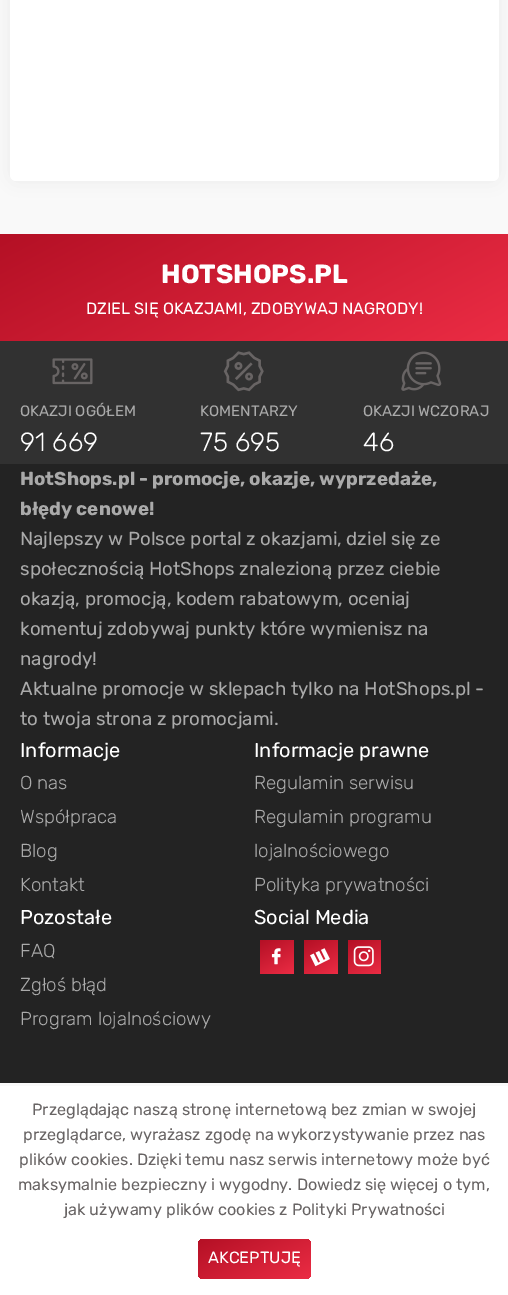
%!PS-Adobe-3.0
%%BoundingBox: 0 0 508 1295
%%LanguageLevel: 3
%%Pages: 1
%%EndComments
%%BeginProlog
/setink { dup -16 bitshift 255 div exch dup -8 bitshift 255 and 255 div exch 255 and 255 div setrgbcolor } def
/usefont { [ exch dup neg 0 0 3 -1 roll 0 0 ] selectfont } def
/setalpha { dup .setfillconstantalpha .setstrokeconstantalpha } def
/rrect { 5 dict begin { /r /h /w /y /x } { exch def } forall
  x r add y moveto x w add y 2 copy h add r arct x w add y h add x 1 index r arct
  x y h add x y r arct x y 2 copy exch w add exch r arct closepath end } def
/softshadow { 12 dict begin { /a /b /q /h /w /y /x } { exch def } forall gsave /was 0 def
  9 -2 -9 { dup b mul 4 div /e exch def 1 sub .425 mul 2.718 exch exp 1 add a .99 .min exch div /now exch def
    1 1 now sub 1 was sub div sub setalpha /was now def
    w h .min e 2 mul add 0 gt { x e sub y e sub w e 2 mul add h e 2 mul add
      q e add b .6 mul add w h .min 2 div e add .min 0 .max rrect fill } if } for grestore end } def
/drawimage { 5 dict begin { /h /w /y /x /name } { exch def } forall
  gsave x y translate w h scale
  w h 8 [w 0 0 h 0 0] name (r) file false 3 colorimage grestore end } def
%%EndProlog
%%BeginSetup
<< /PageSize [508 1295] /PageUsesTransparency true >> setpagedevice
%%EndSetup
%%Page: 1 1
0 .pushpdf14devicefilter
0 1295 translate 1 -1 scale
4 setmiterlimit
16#F9F9F9 setink
0 0 508 1295 rectfill
16#000000 setink
10 -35 489 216 6 9.5 0.05 softshadow
16#FFFFFF setink
10 -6 489 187 6 rrect fill
16#232323 setink
0 464 508 619 rectfill
16#313131 setink
0 341 508 123 rectfill
gsave 0 234 moveto 508 234 lineto 508 341 lineto 0 341 lineto closepath clip newpath
<< /ShadingType 2 /ColorSpace /DeviceRGB /Coords [333 435 176 140] /Extend [true true] /Function << /FunctionType 2 /Domain [0 1] /C0 [0.922 0.173 0.267] /C1 [0.706 0.063 0.145] /N 1 >> >> shfill grestore
/Rubik-Bold 26.25 usefont
16#FFFFFF setink
161 283 moveto (HOTSHOPS.PL) show
/Rubik-Regular 16.25 usefont
86 314 moveto (DZIEL SIĘ OKAZJAMI, ZDOBYWAJ NAGRODY!) show
(img1.raw) 52 358 41 27 drawimage
/Rubik-Regular 15 usefont
16#AAAAAA setink
20 416 moveto (OKAZJI OGÓŁEM) show
/Rubik-Light 26.25 usefont
16#FFFFFF setink
20 451 moveto (91 669) show
(img2.raw) 223 351 41 41 drawimage
/Rubik-Regular 15 usefont
16#AAAAAA setink
200 416 moveto (KOMENTARZY) show
/Rubik-Light 26.25 usefont
16#FFFFFF setink
200 451 moveto (75 695) show
(img3.raw) 401 351 41 40 drawimage
/Rubik-Regular 15 usefont
16#AAAAAA setink
363 416 moveto (OKAZJI WCZORAJ) show
/Rubik-Light 26.25 usefont
16#FFFFFF setink
363 451 moveto (46) show
/Rubik-Bold 18.75 usefont
16#AAAAAA setink
20 485 moveto (HotShops.pl - promocje, okazje, wyprzedaże,) show
20 515 moveto (błędy cenowe!) show
/Rubik-Regular 18.75 usefont
[
    [(Najlepszy w Polsce portal z okazjami, dziel się ze) 20 545]
    [(społecznością HotShops znalezioną przez ciebie) 20 575]
    [(okazją, promocją, kodem rabatowym, oceniaj) 20 605]
    [(komentuj zdobywaj punkty które wymienisz na) 20 635]
    [(nagrody!) 20 665]
    [(Aktualne promocje w sklepach tylko na HotShops.pl -) 20 695]
    [(to twoja strona z promocjami.) 20 725]
] { aload pop moveto show } forall
/Rubik-Regular 20 usefont
16#FFFFFF setink
20 757 moveto (Informacje) show
/Rubik-Light 18.75 usefont
16#AAAAAA setink
[
    [(O nas) 20 789]
    [(Współpraca) 20 823]
    [(Blog) 20 857]
    [(Kontakt) 20 891]
] { aload pop moveto show } forall
/Rubik-Regular 20 usefont
16#FFFFFF setink
254 757 moveto (Informacje prawne) show
/Rubik-Light 18.75 usefont
16#AAAAAA setink
[
    [(Regulamin serwisu) 254 789]
    [(Regulamin programu) 254 823]
    [(lojalnościowego) 254 857]
    [(Polityka prywatności) 254 891]
] { aload pop moveto show } forall
/Rubik-Regular 20 usefont
16#FFFFFF setink
20 924 moveto (Pozostałe) show
/Rubik-Light 18.75 usefont
16#AAAAAA setink
[
    [(FAQ) 20 957]
    [(Zgłoś błąd) 20 991]
    [(Program lojalnościowy) 20 1025]
] { aload pop moveto show } forall
/Rubik-Regular 20 usefont
16#FFFFFF setink
254 924 moveto (Social Media) show
gsave 260 940 moveto 294 940 lineto 294 974 lineto 260 974 lineto closepath clip newpath
<< /ShadingType 2 /ColorSpace /DeviceRGB /Coords [288 977 266 937] /Extend [true true] /Function << /FunctionType 2 /Domain [0 1] /C0 [0.922 0.173 0.267] /C1 [0.706 0.063 0.145] /N 1 >> >> shfill grestore
(img4.raw) 271 948 10 17 drawimage
gsave 304 940 moveto 338 940 lineto 338 974 lineto 304 974 lineto closepath clip newpath
<< /ShadingType 2 /ColorSpace /DeviceRGB /Coords [331 977 310 937] /Extend [true true] /Function << /FunctionType 2 /Domain [0 1] /C0 [0.922 0.173 0.267] /C1 [0.706 0.063 0.145] /N 1 >> >> shfill grestore
(img5.raw) 310 948 20 19 drawimage
gsave 348 940 moveto 381 940 lineto 381 974 lineto 348 974 lineto closepath clip newpath
<< /ShadingType 2 /ColorSpace /DeviceRGB /Coords [375 977 354 937] /Extend [true true] /Function << /FunctionType 2 /Domain [0 1] /C0 [0.922 0.173 0.267] /C1 [0.706 0.063 0.145] /N 1 >> >> shfill grestore
(img6.raw) 353 946 21 21 drawimage
0 1086 508 209 rectfill
/Rubik-Regular 16.25 usefont
16#686464 setink
[
    [(Przeglądając naszą stronę internetową bez zmian w swojej) 32 1115]
    [(przeglądarce, wyrażasz zgodę na wykorzystywanie przez nas) 23 1140]
    [(plików cookies. Dzięki temu nasz serwis internetowy może być) 19 1165]
    [(maksymalnie bezpieczny i wygodny. Dowiedz się więcej o tym,) 18 1190]
    [(jak używamy plików cookies z Polityki Prywatności) 64 1215]
] { aload pop moveto show } forall
gsave 198 1239 113 40 6 rrect clip newpath
<< /ShadingType 2 /ColorSpace /DeviceRGB /Coords [275 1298 234 1220] /Extend [true true] /Function << /FunctionType 2 /Domain [0 1] /C0 [0.922 0.173 0.267] /C1 [0.706 0.063 0.145] /N 1 >> >> shfill grestore
16#FFFFFF setink
208 1263 moveto (AKCEPTUJĘ) show
.poppdf14devicefilter showpage
%%EOF
